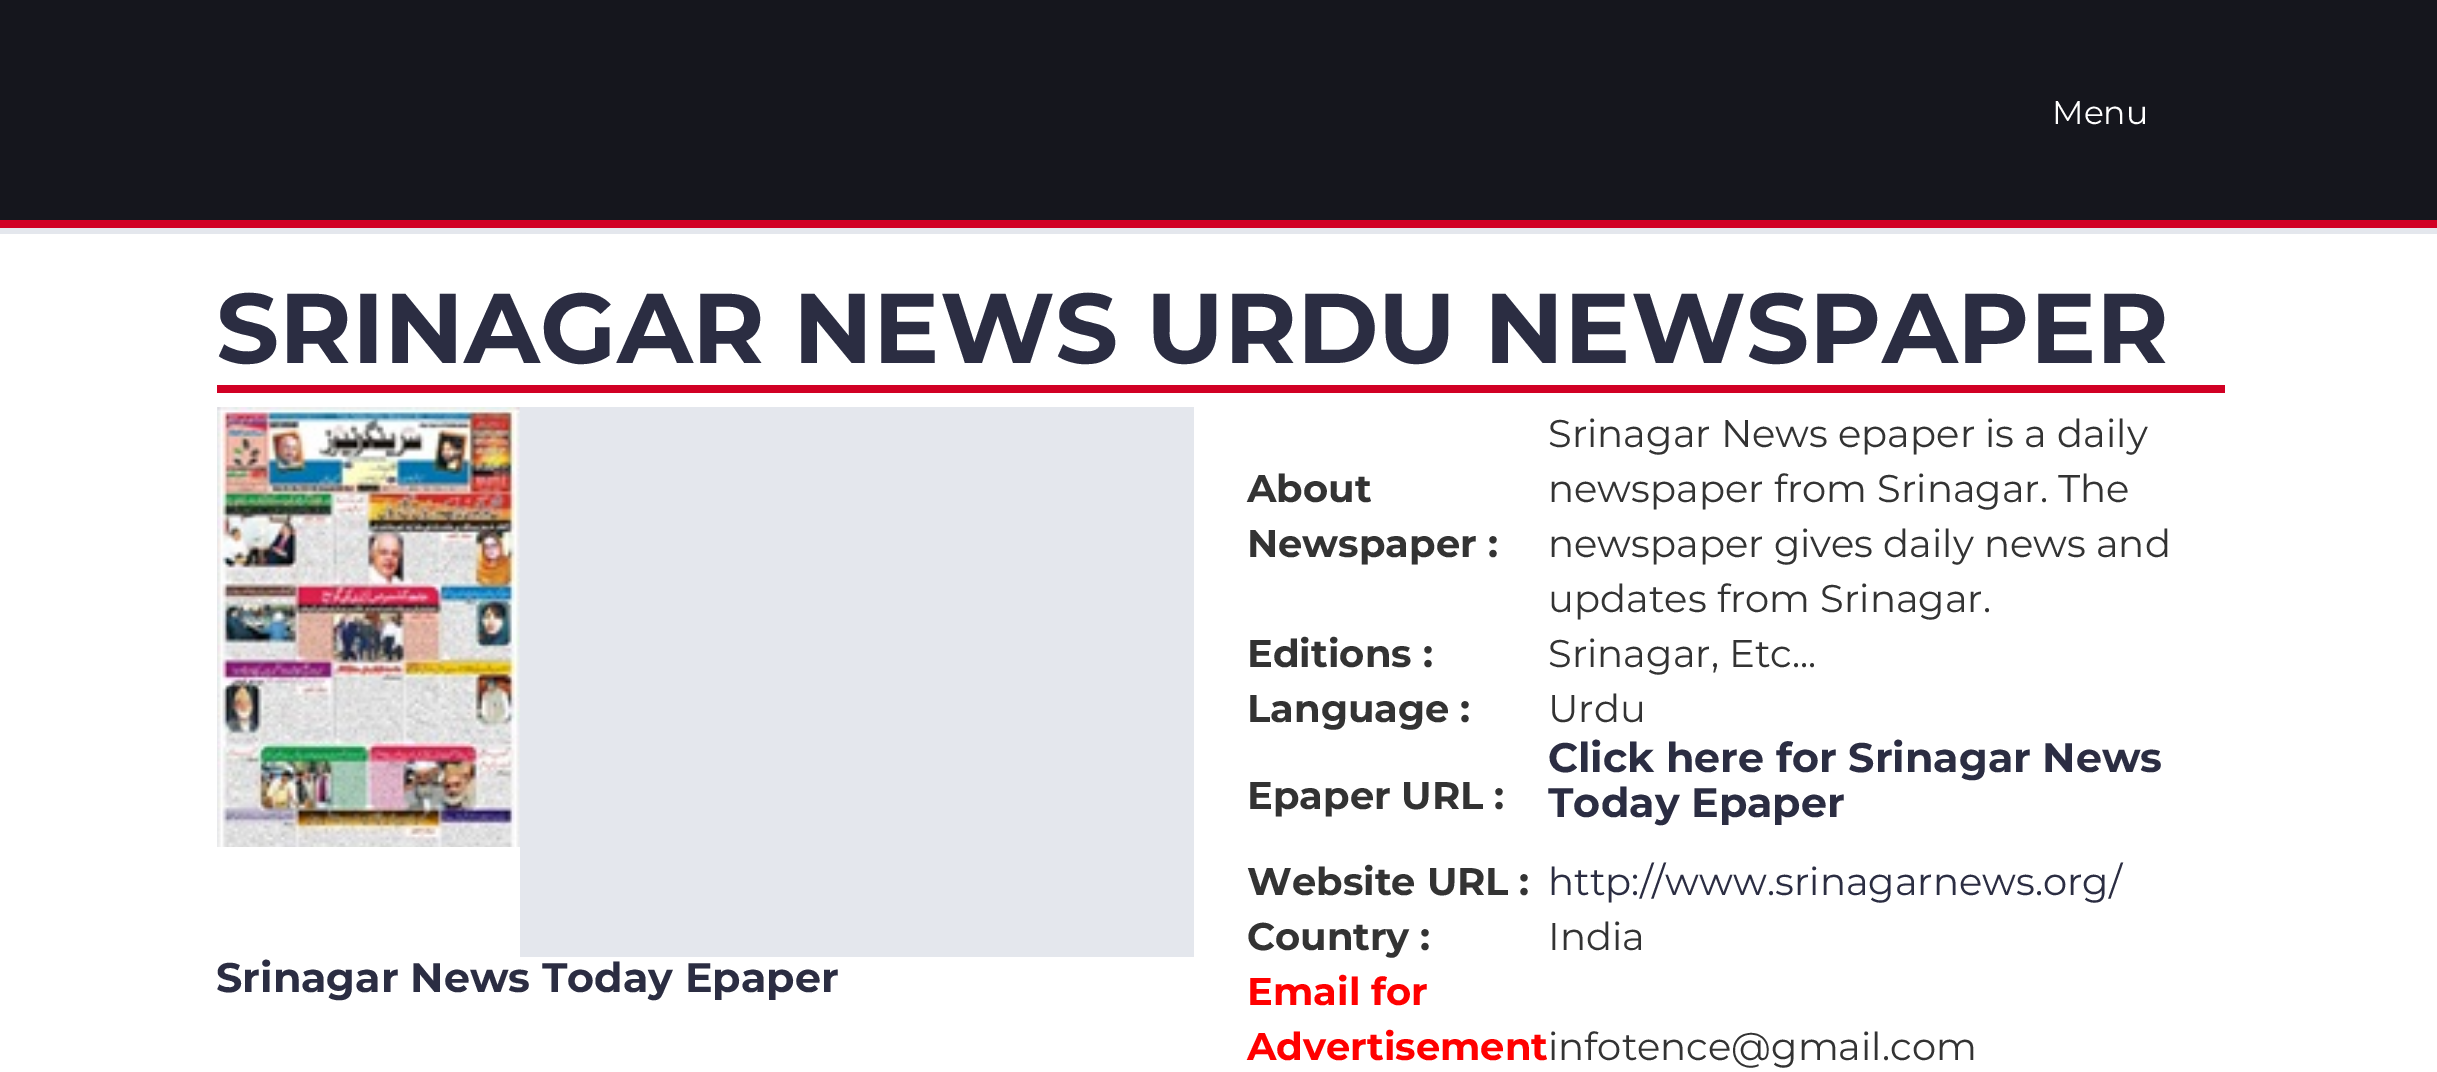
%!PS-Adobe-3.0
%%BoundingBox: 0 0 2437 1072
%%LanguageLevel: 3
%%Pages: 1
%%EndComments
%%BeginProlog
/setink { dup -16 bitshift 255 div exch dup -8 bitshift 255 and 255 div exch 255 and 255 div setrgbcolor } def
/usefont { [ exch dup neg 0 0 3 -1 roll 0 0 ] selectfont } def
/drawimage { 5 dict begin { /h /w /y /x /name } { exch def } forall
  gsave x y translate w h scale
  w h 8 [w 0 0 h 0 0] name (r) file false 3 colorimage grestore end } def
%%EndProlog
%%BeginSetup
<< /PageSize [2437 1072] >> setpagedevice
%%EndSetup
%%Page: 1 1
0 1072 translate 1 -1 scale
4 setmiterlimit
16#FFFFFF setink
0 0 2437 1072 rectfill
16#15161D setink
0 0 2437 220 rectfill
/Montserrat-Regular 33 usefont
16#FFFFFF setink
2052 124 moveto (Menu) show
[
    [0 220 2437 8 16#D10024]
    [0 228 2437 6 16#E4E7ED]
    [217 385 2008 8 16#D10024]
] { aload pop setink rectfill } forall
/Montserrat-Bold 99 usefont
16#2B2D42 setink
216 363 moveto (SRINAGAR NEWS URDU NEWSPAPER) show
16#E4E7ED setink
217 407 303 440 rectfill
(img1.raw) 217 407 303 440 drawimage
520 407 674 550 rectfill
/Montserrat-Bold 41.25 usefont
16#2B2D42 setink
216 992 moveto (Srinagar News Today Epaper) show
/Montserrat-Bold 38.5 usefont
16#333333 setink
1247 502 moveto (About) show
1247 557 moveto (Newspaper :) show
/Montserrat-Regular 38.5 usefont
[
    [(Srinagar News epaper is a daily) 1548 447]
    [(newspaper from Srinagar. The) 1548 502]
    [(newspaper gives daily news and) 1548 557]
    [(updates from Srinagar.) 1548 612]
] { aload pop moveto show } forall
/Montserrat-Bold 38.5 usefont
1247 667 moveto (Editions :) show
/Montserrat-Regular 38.5 usefont
1548 667 moveto (Srinagar, Etc...) show
/Montserrat-Bold 38.5 usefont
1247 722 moveto (Language :) show
/Montserrat-Regular 38.5 usefont
1548 722 moveto (Urdu) show
/Montserrat-Bold 38.5 usefont
1247 809 moveto (Epaper URL :) show
/Montserrat-Bold 41.25 usefont
16#2B2D42 setink
1548 772 moveto (Click here for Srinagar News) show
1548 817 moveto (Today Epaper) show
/Montserrat-Bold 38.5 usefont
16#333333 setink
1247 895 moveto (Website URL :) show
/Montserrat-Regular 38.5 usefont
16#2B2D42 setink
1548 895 moveto (http://www.srinagarnews.org/) show
/Montserrat-Bold 38.5 usefont
16#333333 setink
1247 950 moveto (Country :) show
/Montserrat-Regular 38.5 usefont
1548 950 moveto (India) show
/Montserrat-Bold 38.5 usefont
16#FF0000 setink
1247 1005 moveto (Email for) show
1247 1060 moveto (Advertisement) show
/Montserrat-Regular 38.5 usefont
16#333333 setink
1548 1060 moveto (infotence@gmail.com) show
showpage
%%EOF
